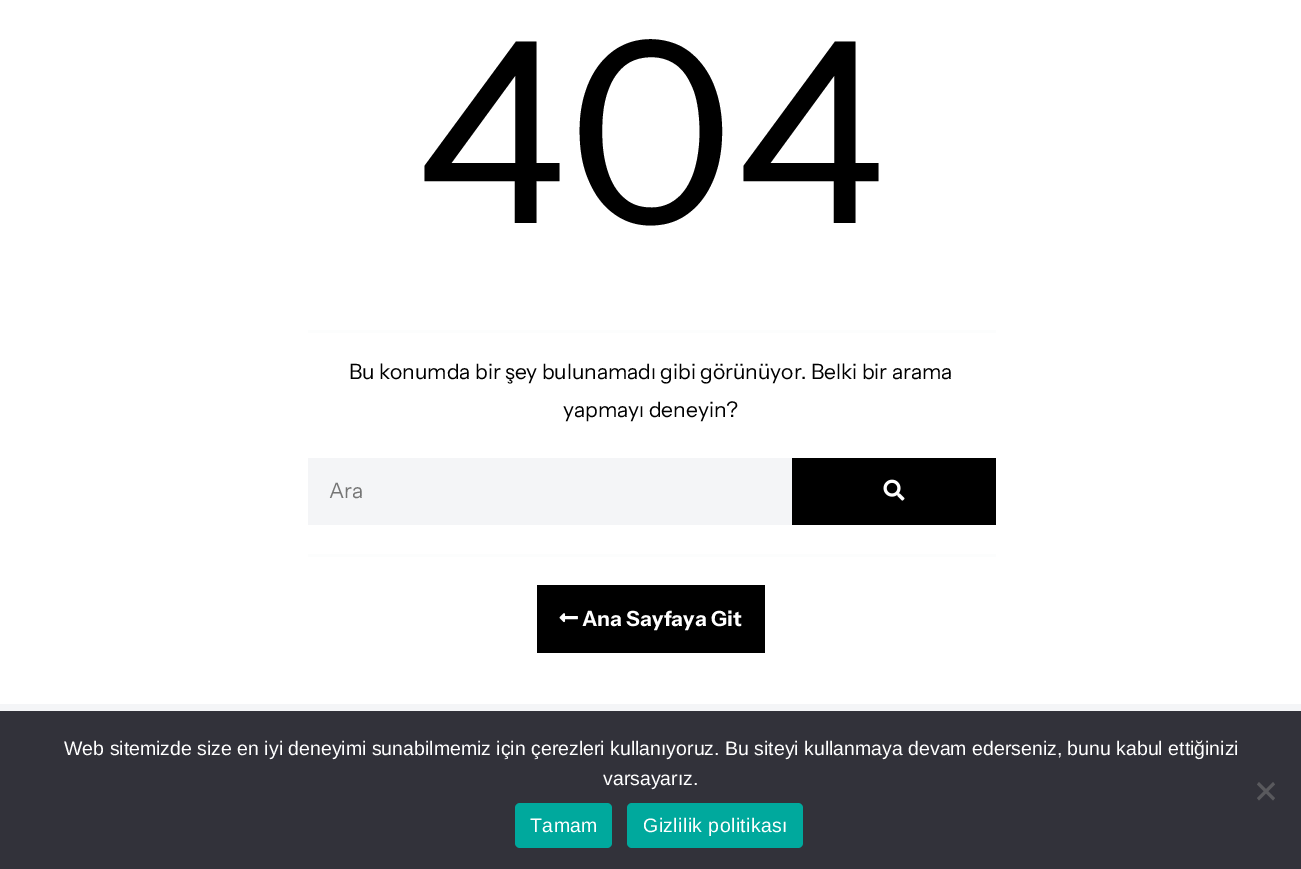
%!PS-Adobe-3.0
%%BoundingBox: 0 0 1301 869
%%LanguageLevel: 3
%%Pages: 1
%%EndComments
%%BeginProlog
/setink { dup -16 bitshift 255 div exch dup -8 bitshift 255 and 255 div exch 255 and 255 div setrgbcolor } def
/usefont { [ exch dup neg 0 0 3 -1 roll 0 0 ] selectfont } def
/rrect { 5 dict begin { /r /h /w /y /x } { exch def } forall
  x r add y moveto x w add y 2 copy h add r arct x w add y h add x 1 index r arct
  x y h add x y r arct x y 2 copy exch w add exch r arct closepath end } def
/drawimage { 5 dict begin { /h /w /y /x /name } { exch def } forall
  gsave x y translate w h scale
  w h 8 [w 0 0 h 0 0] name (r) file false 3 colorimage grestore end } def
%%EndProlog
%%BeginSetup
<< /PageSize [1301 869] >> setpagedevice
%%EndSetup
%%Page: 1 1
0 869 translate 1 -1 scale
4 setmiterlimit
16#FFFFFF setink
0 0 1301 869 rectfill
/InstrumentSans-Regular 252 usefont
16#000000 setink
416 223 moveto (404) show
16#FCFDFD setink
308 330 688 3 rectfill
/InstrumentSans-Regular 21 usefont
16#000000 setink
349 379 moveto (Bu konumda bir şey bulunamadı gibi görünüyor. Belki bir arama) show
563 417 moveto (yapmayı deneyin?) show
16#F4F5F7 setink
308 458 484 67 rectfill
16#757575 setink
329 498 moveto (Ara) show
16#000000 setink
792 458 204 67 rectfill
(img1.raw) 883 479 22 22 drawimage
16#FCFDFD setink
308 554 688 3 rectfill
16#000000 setink
537 585 228 68 rectfill
(img2.raw) 559 613 19 10 drawimage
/InstrumentSans-Bold 21 usefont
16#FFFFFF setink
582 626 moveto (Ana Sayfaya Git) show
16#F4F5F7 setink
0 704 1301 7 rectfill
16#32323A setink
0 711 1301 158 rectfill
/LiberationSans-Regular 19.5 usefont
16#FFFFFF setink
64 755 moveto (Web sitemizde size en iyi deneyimi sunabilmemiz için çerezleri kullanıyoruz. Bu siteyi kullanmaya devam ederseniz, bunu kabul ettiğinizi) show
603 785 moveto (varsayarız.) show
16#59595D setink
1273 782 moveto 1275 784.5 lineto 1259 800.5 lineto 1257 798 lineto closepath fill
1257 784.5 moveto 1259 782 lineto 1275 798 lineto 1273 800.5 lineto closepath fill
16#00A99D setink
515 803 97 45 5 rrect fill
16#FFFFFF setink
530 832 moveto 0.4 0 (Tamam) ashow
16#00A99D setink
627 803 176 45 5 rrect fill
16#FFFFFF setink
643 832 moveto 0.4 0 (Gizlilik politikası) ashow
showpage
%%EOF
